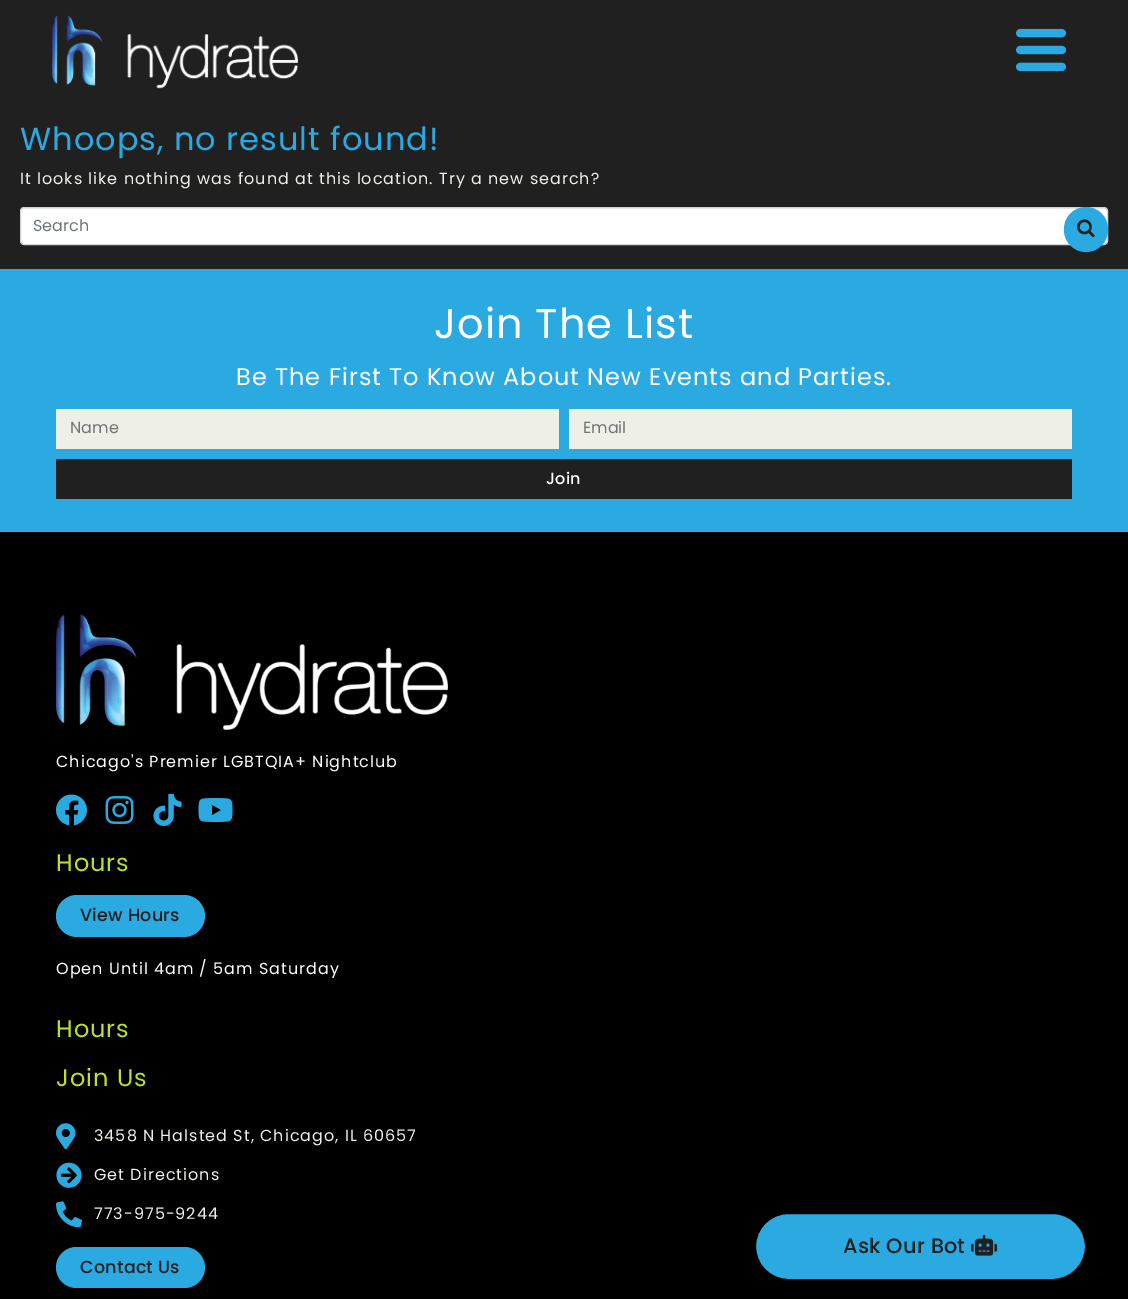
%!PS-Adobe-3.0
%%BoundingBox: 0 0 1128 1299
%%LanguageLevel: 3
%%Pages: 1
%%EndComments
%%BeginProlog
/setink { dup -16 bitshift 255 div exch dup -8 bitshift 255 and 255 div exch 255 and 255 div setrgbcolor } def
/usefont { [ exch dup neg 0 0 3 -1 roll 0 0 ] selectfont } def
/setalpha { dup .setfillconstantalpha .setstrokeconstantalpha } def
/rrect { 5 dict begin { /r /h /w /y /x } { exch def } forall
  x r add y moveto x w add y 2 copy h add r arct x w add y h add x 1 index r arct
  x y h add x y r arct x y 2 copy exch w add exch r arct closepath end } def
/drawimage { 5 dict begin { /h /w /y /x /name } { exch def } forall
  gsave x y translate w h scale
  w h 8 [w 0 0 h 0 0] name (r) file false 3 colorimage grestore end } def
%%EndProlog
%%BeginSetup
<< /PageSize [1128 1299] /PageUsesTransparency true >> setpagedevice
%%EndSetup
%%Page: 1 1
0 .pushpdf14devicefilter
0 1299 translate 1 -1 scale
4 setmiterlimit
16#202020 setink
0 0 1128 1299 rectfill
(img1.raw) 52 15 246 74 drawimage
(img2.raw) 1016 28 50 44 drawimage
/Poppins-Regular 32 usefont
16#2BAAE1 setink
20 150 moveto 1 0 (Whoops, no result found!) ashow
/Poppins-Regular 16 usefont
16#EEEFE6 setink
20 184 moveto 1 0 (It looks like nothing was found at this location. Try a new search?) ashow
16#FFFFFF setink
21 208 1086 36 3 rrect fill
0.07 setalpha
16#000000 setink
24 209 moveto 1104 209 lineto 1106 209 1107 210 1107 212 curveto 1107 211 lineto 1107 209 1106 208 1104 208 curveto 24 208 lineto 22 208 21 209 21 211 curveto 21 212 lineto 21 210 22 209 24 209 curveto closepath fill
1 setalpha
16#CED4DA setink
20.5 207.5 1087 37 3.5 rrect stroke
16#6C757D setink
33 231 moveto (Search) show
16#2BAAE1 setink
1064 207 44 45 22 rrect fill
(img3.raw) 1077 219 18 19 drawimage
0 269 1128 263 rectfill
/Poppins-Regular 41.5 usefont
16#FFFFFF setink
434 338 moveto 1 0 (Join The List) ashow
/Poppins-Regular 24 usefont
236 385 moveto 1 0 (Be The First To Know About New Events and Parties.) ashow
16#EEEFE6 setink
56 409 503 40 rectfill
/Poppins-Regular 16 usefont
16#727372 setink
70 433 moveto (Name) show
16#EEEFE6 setink
569 409 503 40 rectfill
16#727372 setink
583 433 moveto (Email) show
16#202020 setink
56 459 1016 40 rectfill
/Poppins-Medium 16 usefont
16#FFFFFF setink
546 484 moveto 0.25 0 (Join) ashow
16#000000 setink
0 532 1128 767 rectfill
(img4.raw) 56 614 392 116 drawimage
/Poppins-Regular 16 usefont
16#FFFFFF setink
56 767 moveto 1 0 (Chicago's Premier LGBTQIA+ Nightclub) ashow
(img5.raw) 56 794 31 32 drawimage
(img6.raw) 105 795 29 29 drawimage
(img7.raw) 153 794 29 32 drawimage
(img8.raw) 198 798 35 24 drawimage
/Poppins-Regular 24 usefont
16#BAE12B setink
56 871 moveto 1 0 (Hours) ashow
16#2BAAE1 setink
56 895 149 42 21 rrect fill
/Poppins-Medium 17.5 usefont
16#202020 setink
80 921 moveto 0.25 0 (View Hours) ashow
/Poppins-Regular 16 usefont
16#FFFFFF setink
56 974 moveto 1 0 (Open Until 4am / 5am Saturday) ashow
/Poppins-Regular 24 usefont
16#BAE12B setink
56 1037 moveto 1 0 (Hours) ashow
56 1086 moveto 1 0 (Join Us) ashow
(img9.raw) 56 1123 20 27 drawimage
/Poppins-Regular 16 usefont
16#EEEFE6 setink
94 1141 moveto 1 0 (3458 N Halsted St, Chicago, IL 60657) ashow
(img10.raw) 56 1162 26 26 drawimage
94 1180 moveto 1 0 (Get Directions) ashow
(img11.raw) 56 1201 26 27 drawimage
94 1219 moveto 1 0 (773-975-9244) ashow
16#2BAAE1 setink
56 1247 149 41 20.5 rrect fill
/Poppins-Medium 17.5 usefont
16#202020 setink
80 1273 moveto 0.25 0 (Contact Us) ashow
16#2BAAE1 setink
755 1213 331 67 33.5 rrect gsave fill grestore
16#000000 setink
2 setlinewidth
stroke
/Poppins-Medium 20.75 usefont
16#202020 setink
843 1253 moveto 0.25 0 (Ask Our Bot) ashow
(img12.raw) 971 1234 27 22 drawimage
.poppdf14devicefilter showpage
%%EOF
